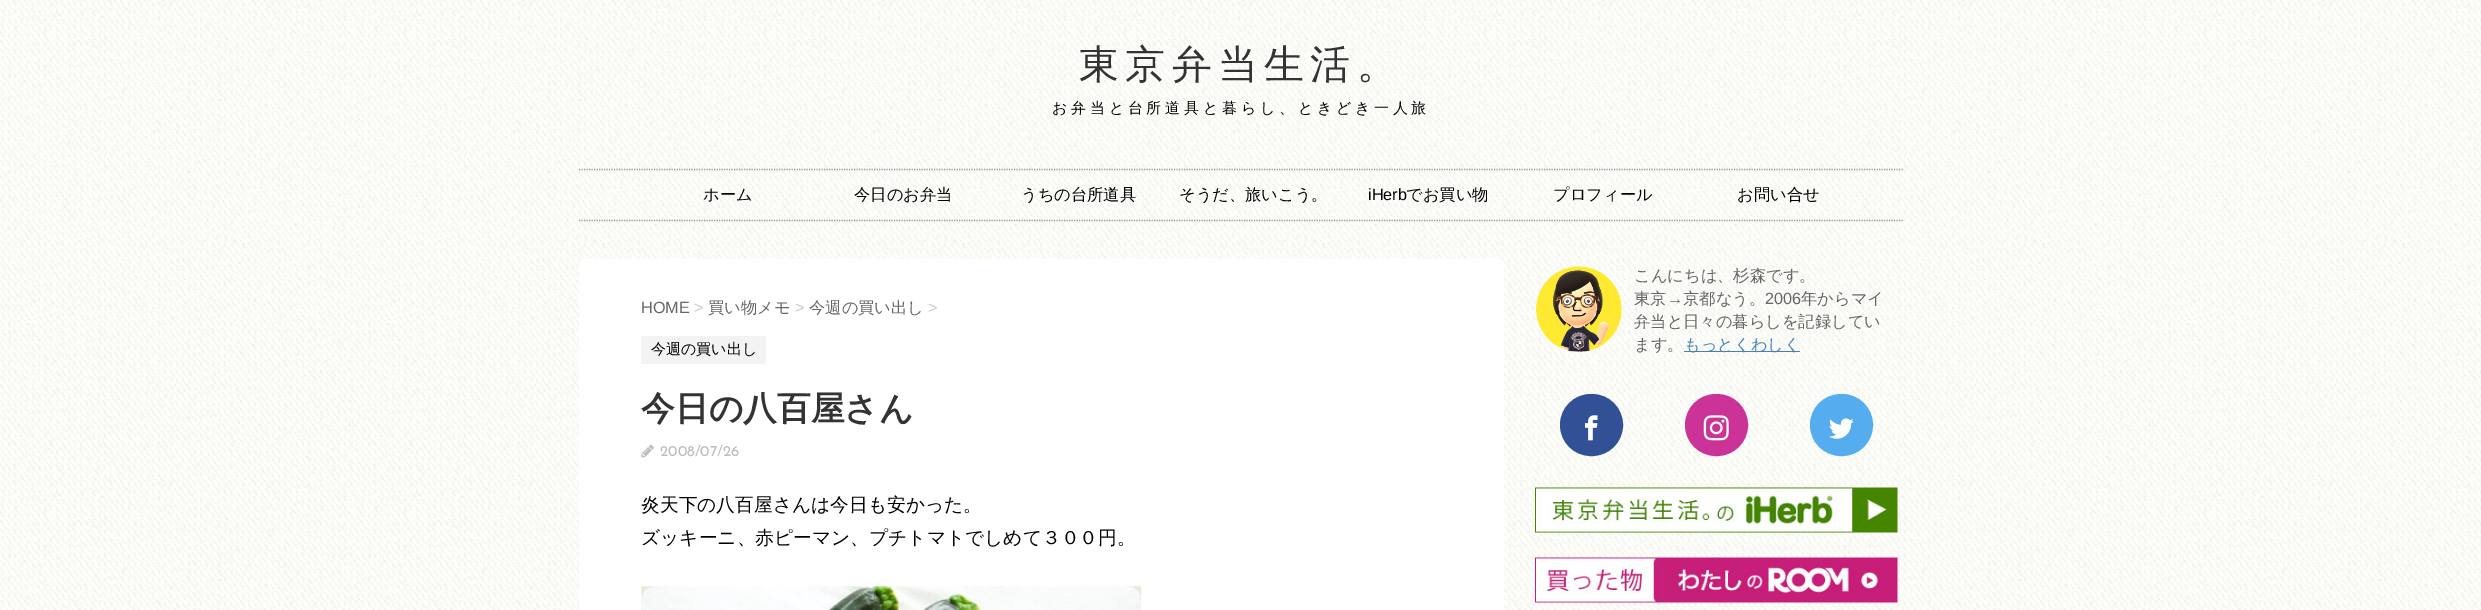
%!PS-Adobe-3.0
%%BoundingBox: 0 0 2481 610
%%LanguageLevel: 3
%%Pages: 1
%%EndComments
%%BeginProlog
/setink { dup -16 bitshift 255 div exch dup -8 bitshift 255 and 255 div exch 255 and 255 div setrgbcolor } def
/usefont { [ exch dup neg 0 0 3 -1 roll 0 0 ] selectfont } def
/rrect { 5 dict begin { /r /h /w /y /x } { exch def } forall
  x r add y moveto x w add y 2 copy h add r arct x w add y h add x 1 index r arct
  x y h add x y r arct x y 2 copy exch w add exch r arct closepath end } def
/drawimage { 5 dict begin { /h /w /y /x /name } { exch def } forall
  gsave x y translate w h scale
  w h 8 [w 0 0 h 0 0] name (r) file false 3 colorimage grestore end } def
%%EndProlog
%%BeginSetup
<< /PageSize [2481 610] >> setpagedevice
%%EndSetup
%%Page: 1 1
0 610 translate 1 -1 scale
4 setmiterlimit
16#FFFFFF setink
0 0 2481 610 rectfill
(img1.raw) 0 0 2481 610 drawimage
/WenQuanYiZenHei-Medium 40 usefont
16#333333 setink
1079 78 moveto 6.25 0 (東京弁当生活。) ashow
/WenQuanYiZenHei-Medium 15 usefont
16#000000 setink
1052 113 moveto 3.75 0 (お弁当と台所道具と暮らし、ときどき一人旅) ashow
16#999999 setink
1.2 setlinewidth
[1.25 1.25] 0 setdash
579 169.5 moveto 1904 169.5 lineto stroke
579 220.5 moveto 1904 220.5 lineto stroke
/WenQuanYiZenHei-Medium 16.25 usefont
16#000000 setink
[
    [(ホーム) 703 200]
    [(今日のお弁当) 854 200]
    [(うちの台所道具) 1021 200]
    [(そうだ、旅いこう。) 1179 200]
] { aload pop moveto show } forall
/LiberationSans-Regular 16.25 usefont
1368 200 moveto (iHerb) show
/WenQuanYiZenHei-Medium 16.25 usefont
[
    [(でお買い物) 1406 200]
    [(プロフィール) 1553 200]
    [(お問い合せ) 1737 200]
] { aload pop moveto show } forall
16#FFFFFF setink
579 259 925 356 5 rrect fill
/LiberationSans-Regular 16.25 usefont
16#666666 setink
641 313 moveto (HOME) show
16#CCCCCC setink
694 313 moveto (>) show
/WenQuanYiZenHei-Medium 16.25 usefont
16#666666 setink
708 313 moveto (買い物メモ) show
/LiberationSans-Regular 16.25 usefont
16#CCCCCC setink
795 313 moveto (>) show
/WenQuanYiZenHei-Medium 16.25 usefont
16#666666 setink
809 313 moveto (今週の買い出し) show
/LiberationSans-Regular 16.25 usefont
16#CCCCCC setink
928 313 moveto (>) show
16#F3F3F3 setink
641 336 125 28 2.5 rrect fill
/WenQuanYiZenHei-Medium 15 usefont
16#000000 setink
651 354 moveto (今週の買い出し) show
/WenQuanYiZenHei-Bold 33.75 usefont
16#333333 setink
641 420 moveto (今日の八百屋さん) show
(img2.raw) 641 444 13 14 drawimage
/JosefinSans-Regular 15 usefont
16#BDBDBD setink
660 456 moveto (2008/07/26) show
/WenQuanYiZenHei-Medium 18.75 usefont
16#000000 setink
641 511 moveto (炎天下の八百屋さんは今日も安かった。) show
641 544 moveto (ズッキーニ、赤ピーマン、プチトマトでしめて３００円。) show
(img3.raw) 641 586 501 24 drawimage
(img4.raw) 1536 266 86 86 drawimage
/WenQuanYiZenHei-Medium 16.25 usefont
16#666666 setink
1634 281 moveto (こんにちは、杉森です。) show
1634 304 moveto (東京) show
/LiberationSans-Regular 16.25 usefont
1667 304 moveto (→) show
/WenQuanYiZenHei-Medium 16.25 usefont
1683 304 moveto (京都なう。) show
/LiberationSans-Regular 16.25 usefont
1765 304 moveto (2006) show
/WenQuanYiZenHei-Medium 16.25 usefont
[
    [(年からマイ) 1801 304]
    [(弁当と日々の暮らしを記録してい) 1634 327]
    [(ます。) 1634 350]
] { aload pop moveto show } forall
16#4682B4 setink
1684 351 116 1 rectfill
1684 350 moveto (もっとくわしく) show
16#315096 setink
1561.5 395.5 60 59 29.5 rrect gsave fill grestore
3 setlinewidth
[] 0 setdash
stroke
(img5.raw) 1585 415 13 26 drawimage
16#CC3399 setink
1686.5 395.5 60 59 29.5 rrect gsave fill grestore
stroke
(img6.raw) 1703 415 26 26 drawimage
16#55ACEE setink
1811.5 395.5 60 59 29.5 rrect gsave fill grestore
stroke
(img7.raw) 1829 418 25 21 drawimage
(img8.raw) 1535 487 363 46 drawimage
(img9.raw) 1535 557 363 46 drawimage
showpage
%%EOF
